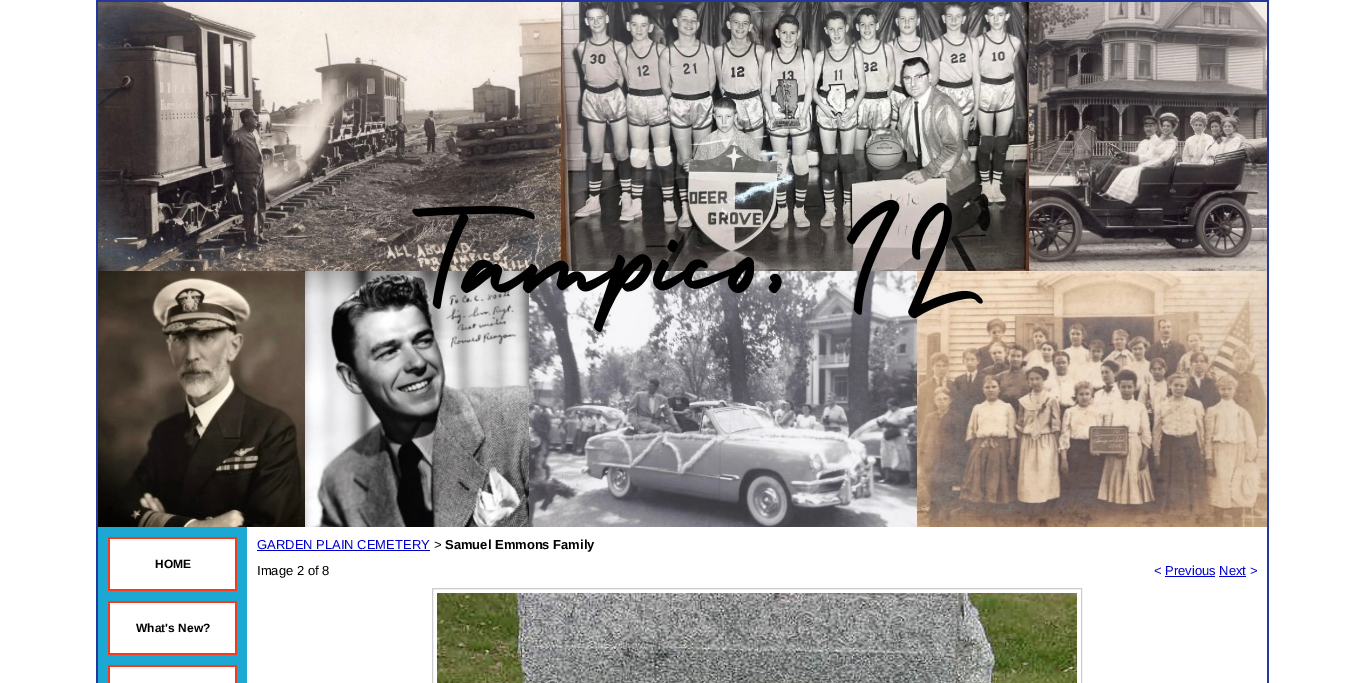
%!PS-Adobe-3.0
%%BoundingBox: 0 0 1365 683
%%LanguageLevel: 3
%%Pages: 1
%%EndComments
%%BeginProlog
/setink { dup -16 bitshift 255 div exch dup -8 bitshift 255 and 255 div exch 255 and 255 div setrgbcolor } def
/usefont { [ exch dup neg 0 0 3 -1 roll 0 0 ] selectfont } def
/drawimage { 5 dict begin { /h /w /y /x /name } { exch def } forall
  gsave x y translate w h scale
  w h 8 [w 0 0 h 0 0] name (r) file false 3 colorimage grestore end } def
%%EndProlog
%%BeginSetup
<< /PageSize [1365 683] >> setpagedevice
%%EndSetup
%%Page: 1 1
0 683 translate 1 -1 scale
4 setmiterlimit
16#FFFFFF setink
0 0 1365 683 rectfill
16#24389B setink
96 0 1173 683 rectfill
(img1.raw) 98 2 1169 525 drawimage
[
    [98 527 149 156 16#1BA8D3]
    [108 537 129 54 16#F7391C]
    [110 539 125 50 16#FFFFFF]
] { aload pop setink rectfill } forall
/LiberationSans-Bold 12 usefont
16#000000 setink
155 568 moveto (HOME) show
16#F7391C setink
108 601 129 54 rectfill
16#FFFFFF setink
110 603 125 50 rectfill
16#000000 setink
136 632 moveto (What's New?) show
[
    [108 665 129 18 16#F7391C]
    [110 667 125 16 16#FFFFFF]
    [247 527 1020 156 16#FFFFFF]
] { aload pop setink rectfill } forall
/LiberationSans-Regular 13 usefont
16#0000CC setink
257 549 moveto (GARDEN PLAIN CEMETERY) show
257 550 173 1 rectfill
/LiberationMono-Regular 13 usefont
16#000000 setink
434 549 moveto (>) show
/LiberationSans-Bold 13 usefont
445 549 moveto (Samuel Emmons Family) show
/LiberationSans-Regular 13 usefont
257 575 moveto (Image 2 of 8) show
16#0000CC setink
1154 575 moveto (< Previous Next >) show
1165 576 50 1 rectfill
1219 576 27 1 rectfill
16#CCCCCC setink
432.5 588.5 649 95 rectstroke
(img2.raw) 437 593 640 90 drawimage
showpage
%%EOF
